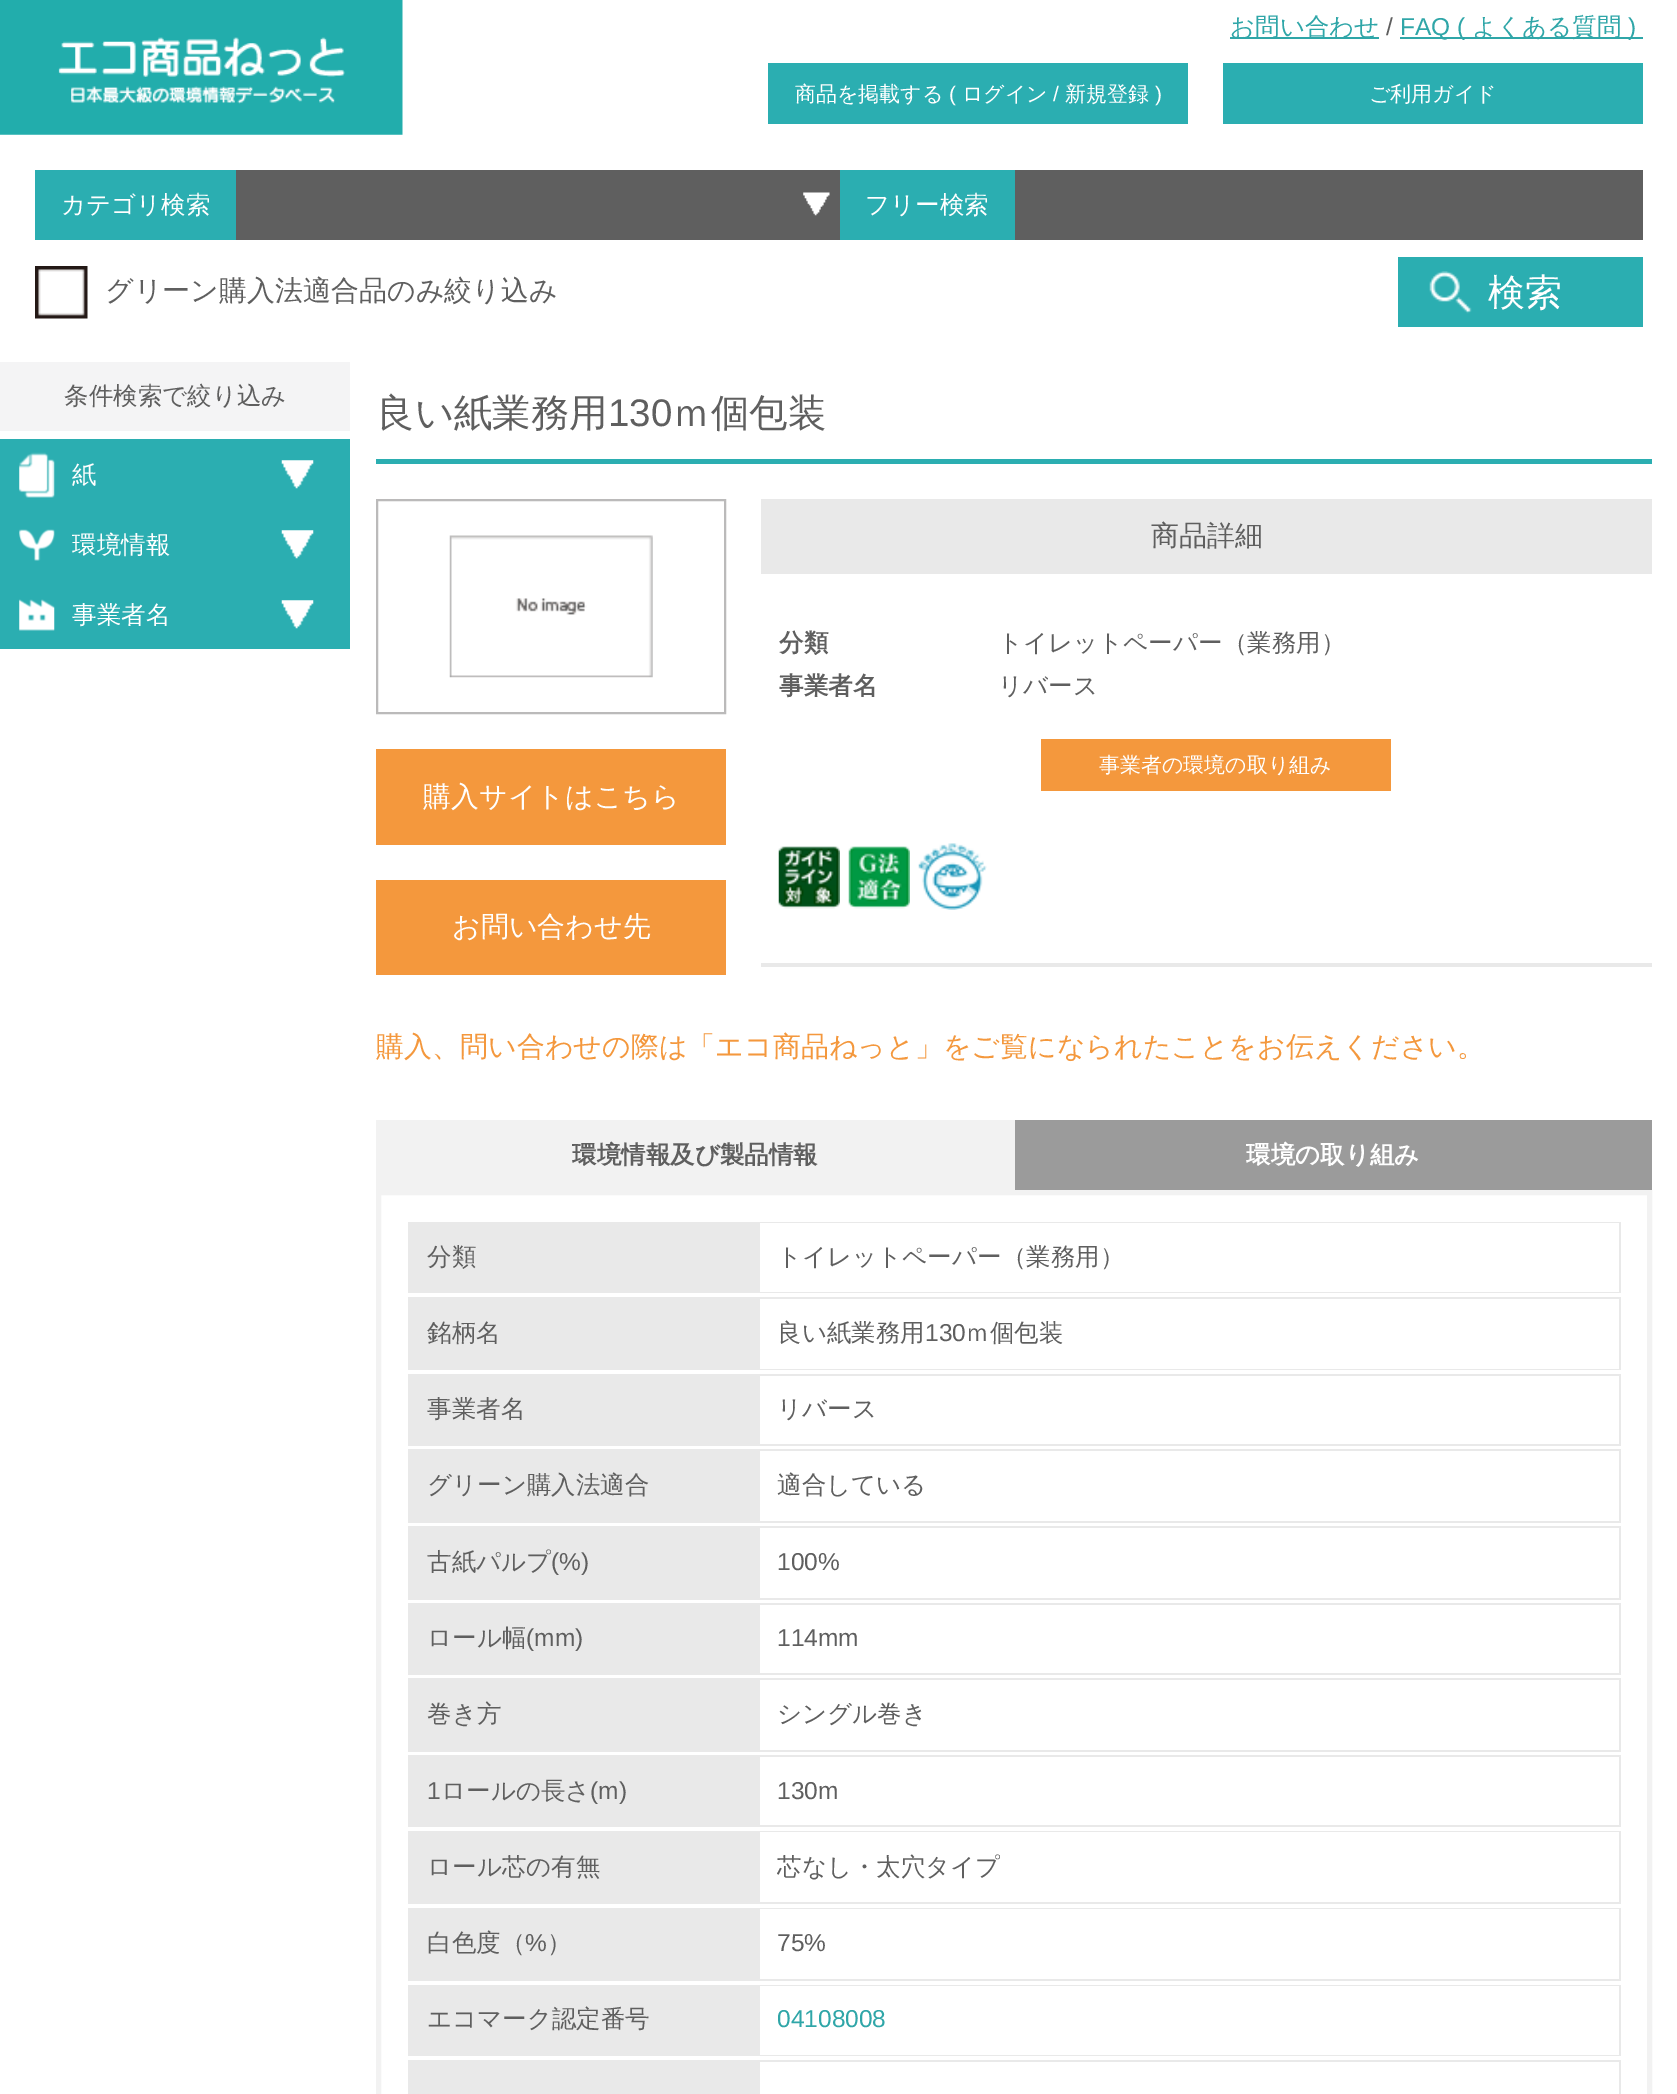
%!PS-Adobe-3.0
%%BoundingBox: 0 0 1677 2094
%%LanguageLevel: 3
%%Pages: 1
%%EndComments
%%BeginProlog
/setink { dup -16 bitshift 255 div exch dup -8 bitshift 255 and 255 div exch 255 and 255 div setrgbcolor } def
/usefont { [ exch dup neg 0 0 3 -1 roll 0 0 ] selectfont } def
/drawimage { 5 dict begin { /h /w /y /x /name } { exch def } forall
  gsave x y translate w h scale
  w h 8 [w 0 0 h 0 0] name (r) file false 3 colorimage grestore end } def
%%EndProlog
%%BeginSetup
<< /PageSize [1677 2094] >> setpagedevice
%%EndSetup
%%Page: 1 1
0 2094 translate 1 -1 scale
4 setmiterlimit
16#FFFFFF setink
0 0 1677 2094 rectfill
(img1.raw) 0 0 403 135 drawimage
16#2FA6A8 setink
1230 37 149 2 rectfill
/WenQuanYiZenHei-Medium 24.5 usefont
1230 35 moveto (お問い合わせ) show
/LiberationSans-Regular 24.5 usefont
16#5F5F5F setink
1386 35 moveto (/) show
16#2FA6A8 setink
1400 37 243 2 rectfill
1400 35 moveto (FAQ \() show
/WenQuanYiZenHei-Medium 24.5 usefont
1472 35 moveto (よくある質問) show
/LiberationSans-Regular 24.5 usefont
1628 35 moveto (\)) show
16#2BAEB1 setink
768 63 420 61 rectfill
/WenQuanYiZenHei-Medium 21 usefont
16#FFFFFF setink
795 101 moveto (商品を掲載する) show
/LiberationSans-Regular 21 usefont
949 101 moveto (\() show
/WenQuanYiZenHei-Medium 21 usefont
962 101 moveto (ログイン) show
/LiberationSans-Regular 21 usefont
1053 101 moveto (/) show
/WenQuanYiZenHei-Medium 21 usefont
1065 101 moveto (新規登録) show
/LiberationSans-Regular 21 usefont
1155 101 moveto (\)) show
16#2BAEB1 setink
1223 63 420 61 rectfill
/WenQuanYiZenHei-Medium 21 usefont
16#FFFFFF setink
1369 101 moveto (ご利用ガイド) show
16#2BAEB1 setink
35 170 201 70 rectfill
/WenQuanYiZenHei-Medium 24.5 usefont
16#FFFFFF setink
61 213 moveto (カテゴリ検索) show
16#5F5F5F setink
236 170 604 70 rectfill
(img2.raw) 803 192 27 24 drawimage
16#2BAEB1 setink
840 170 175 70 rectfill
16#FFFFFF setink
865 213 moveto (フリー検索) show
16#5F5F5F setink
1015 170 628 70 rectfill
(img3.raw) 35 266 53 53 drawimage
/WenQuanYiZenHei-Medium 28 usefont
105 300 moveto (グリーン購入法適合品のみ絞り込み) show
16#2BAEB1 setink
1398 257 245 70 rectfill
(img4.raw) 1429 271 43 43 drawimage
/WenQuanYiZenHei-Medium 37 usefont
16#FFFFFF setink
1488 305 moveto (検索) show
16#F4F4F5 setink
0 362 350 69 rectfill
/WenQuanYiZenHei-Medium 24.5 usefont
16#5F5F5F setink
64 404 moveto (条件検索で絞り込み) show
16#2BAEB1 setink
0 439 350 210 rectfill
(img5.raw) 281 460 33 29 drawimage
(img6.raw) 19 452 36 46 drawimage
16#FFFFFF setink
72 483 moveto (紙) show
(img5.raw) 281 530 33 29 drawimage
(img7.raw) 19 529 36 32 drawimage
72 553 moveto (環境情報) show
(img5.raw) 281 600 33 29 drawimage
(img8.raw) 19 599 36 32 drawimage
72 623 moveto (事業者名) show
16#2BAEB1 setink
376 459 1276 5 rectfill
/WenQuanYiZenHei-Medium 38.5 usefont
16#5F5F5F setink
376 426 moveto (良い紙業務用) show
/LiberationSans-Regular 38.5 usefont
608 426 moveto (130) show
/WenQuanYiZenHei-Medium 38.5 usefont
672 426 moveto (ｍ個包装) show
16#E9E9E9 setink
761 499 891 75 rectfill
/WenQuanYiZenHei-Medium 28 usefont
16#5F5F5F setink
1151 545 moveto (商品詳細) show
/WenQuanYiZenHei-Bold 24.5 usefont
779 651 moveto (分類) show
/WenQuanYiZenHei-Medium 24.5 usefont
998 651 moveto (トイレットペーパー（業務用）) show
/WenQuanYiZenHei-Bold 24.5 usefont
779 694 moveto (事業者名) show
/WenQuanYiZenHei-Medium 24.5 usefont
998 694 moveto (リバース) show
16#F4983D setink
1041 739 350 52 rectfill
/WenQuanYiZenHei-Medium 21 usefont
16#FFFFFF setink
1099 772 moveto (事業者の環境の取り組み) show
(img9.raw) 778 846 62 63 drawimage
(img10.raw) 848 846 62 63 drawimage
(img11.raw) 918 843 69 67 drawimage
16#E9E9E9 setink
761 963 891 4 rectfill
16#BBBABA setink
2 setlinewidth
377 500 348 213 rectstroke
(img12.raw) 449 535 204 143 drawimage
16#F4983D setink
376 749 350 96 rectfill
/WenQuanYiZenHei-Medium 28 usefont
16#FFFFFF setink
423 806 moveto (購入サイトはこちら) show
16#F4983D setink
376 880 350 95 rectfill
16#FFFFFF setink
452 936 moveto (お問い合わせ先) show
16#F4983D setink
376 1056 moveto (購入、問い合わせの際は「エコ商品ねっと」をご覧になられたことをお伝えください。) show
16#F2F2F2 setink
376 1120 639 70 rectfill
/WenQuanYiZenHei-Bold 24.5 usefont
16#5F5F5F setink
572 1163 moveto (環境情報及び製品情報) show
16#9B9B9B setink
1015 1120 637 70 rectfill
16#FFFFFF setink
1246 1163 moveto (環境の取り組み) show
16#F2F2F2 setink
5 setlinewidth
378.5 1192.5 1271 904 rectstroke
16#E9E9E9 setink
408 1222 1213 71 rectfill
/WenQuanYiZenHei-Medium 24.5 usefont
16#5F5F5F setink
427 1265 moveto (分類) show
16#FFFFFF setink
760 1223 859 69 rectfill
16#5F5F5F setink
777 1265 moveto (トイレットペーパー（業務用）) show
16#E9E9E9 setink
408 1297 1213 73 rectfill
16#5F5F5F setink
427 1341 moveto (銘柄名) show
16#FFFFFF setink
760 1299 859 70 rectfill
16#5F5F5F setink
777 1341 moveto (良い紙業務用) show
/LiberationSans-Regular 24.5 usefont
925 1341 moveto (130) show
/WenQuanYiZenHei-Medium 24.5 usefont
965 1341 moveto (ｍ個包装) show
16#E9E9E9 setink
408 1374 1213 72 rectfill
16#5F5F5F setink
427 1417 moveto (事業者名) show
16#FFFFFF setink
760 1376 859 68 rectfill
16#5F5F5F setink
777 1417 moveto (リバース) show
16#E9E9E9 setink
408 1449 1213 74 rectfill
16#5F5F5F setink
427 1493 moveto (グリーン購入法適合) show
16#FFFFFF setink
760 1451 859 70 rectfill
16#5F5F5F setink
777 1493 moveto (適合している) show
16#E9E9E9 setink
408 1526 1213 74 rectfill
16#5F5F5F setink
427 1570 moveto (古紙パルプ) show
/LiberationSans-Regular 24.5 usefont
551 1570 moveto (\(%\)) show
16#FFFFFF setink
760 1528 859 70 rectfill
16#5F5F5F setink
777 1570 moveto (100%) show
16#E9E9E9 setink
408 1603 1213 72 rectfill
/WenQuanYiZenHei-Medium 24.5 usefont
16#5F5F5F setink
427 1646 moveto (ロール幅) show
/LiberationSans-Regular 24.5 usefont
526 1646 moveto (\(mm\)) show
16#FFFFFF setink
760 1605 859 68 rectfill
16#5F5F5F setink
777 1646 moveto (114mm) show
16#E9E9E9 setink
408 1678 1213 74 rectfill
/WenQuanYiZenHei-Medium 24.5 usefont
16#5F5F5F setink
427 1722 moveto (巻き方) show
16#FFFFFF setink
760 1680 859 70 rectfill
16#5F5F5F setink
777 1722 moveto (シングル巻き) show
16#E9E9E9 setink
408 1755 1213 72 rectfill
/LiberationSans-Regular 24.5 usefont
16#5F5F5F setink
427 1799 moveto (1) show
/WenQuanYiZenHei-Medium 24.5 usefont
441 1799 moveto (ロールの長さ) show
/LiberationSans-Regular 24.5 usefont
590 1799 moveto (\(m\)) show
16#FFFFFF setink
760 1757 859 68 rectfill
16#5F5F5F setink
777 1799 moveto (130m) show
16#E9E9E9 setink
408 1831 1213 73 rectfill
/WenQuanYiZenHei-Medium 24.5 usefont
16#5F5F5F setink
427 1875 moveto (ロール芯の有無) show
16#FFFFFF setink
760 1832 859 70 rectfill
16#5F5F5F setink
777 1875 moveto (芯なし・太穴タイプ) show
16#E9E9E9 setink
408 1908 1213 73 rectfill
16#5F5F5F setink
427 1951 moveto (白色度（) show
/LiberationSans-Regular 24.5 usefont
525 1951 moveto (%) show
/WenQuanYiZenHei-Medium 24.5 usefont
547 1951 moveto (）) show
16#FFFFFF setink
760 1909 859 70 rectfill
/LiberationSans-Regular 24.5 usefont
16#5F5F5F setink
777 1951 moveto (75%) show
16#E9E9E9 setink
408 1985 1213 71 rectfill
/WenQuanYiZenHei-Medium 24.5 usefont
16#5F5F5F setink
427 2027 moveto (エコマーク認定番号) show
16#FFFFFF setink
760 1986 859 69 rectfill
/LiberationSans-Regular 24.5 usefont
16#2FA6A8 setink
777 2027 moveto (04108008) show
16#E9E9E9 setink
408 2060 1213 34 rectfill
16#FFFFFF setink
760 2062 859 32 rectfill
showpage
%%EOF
